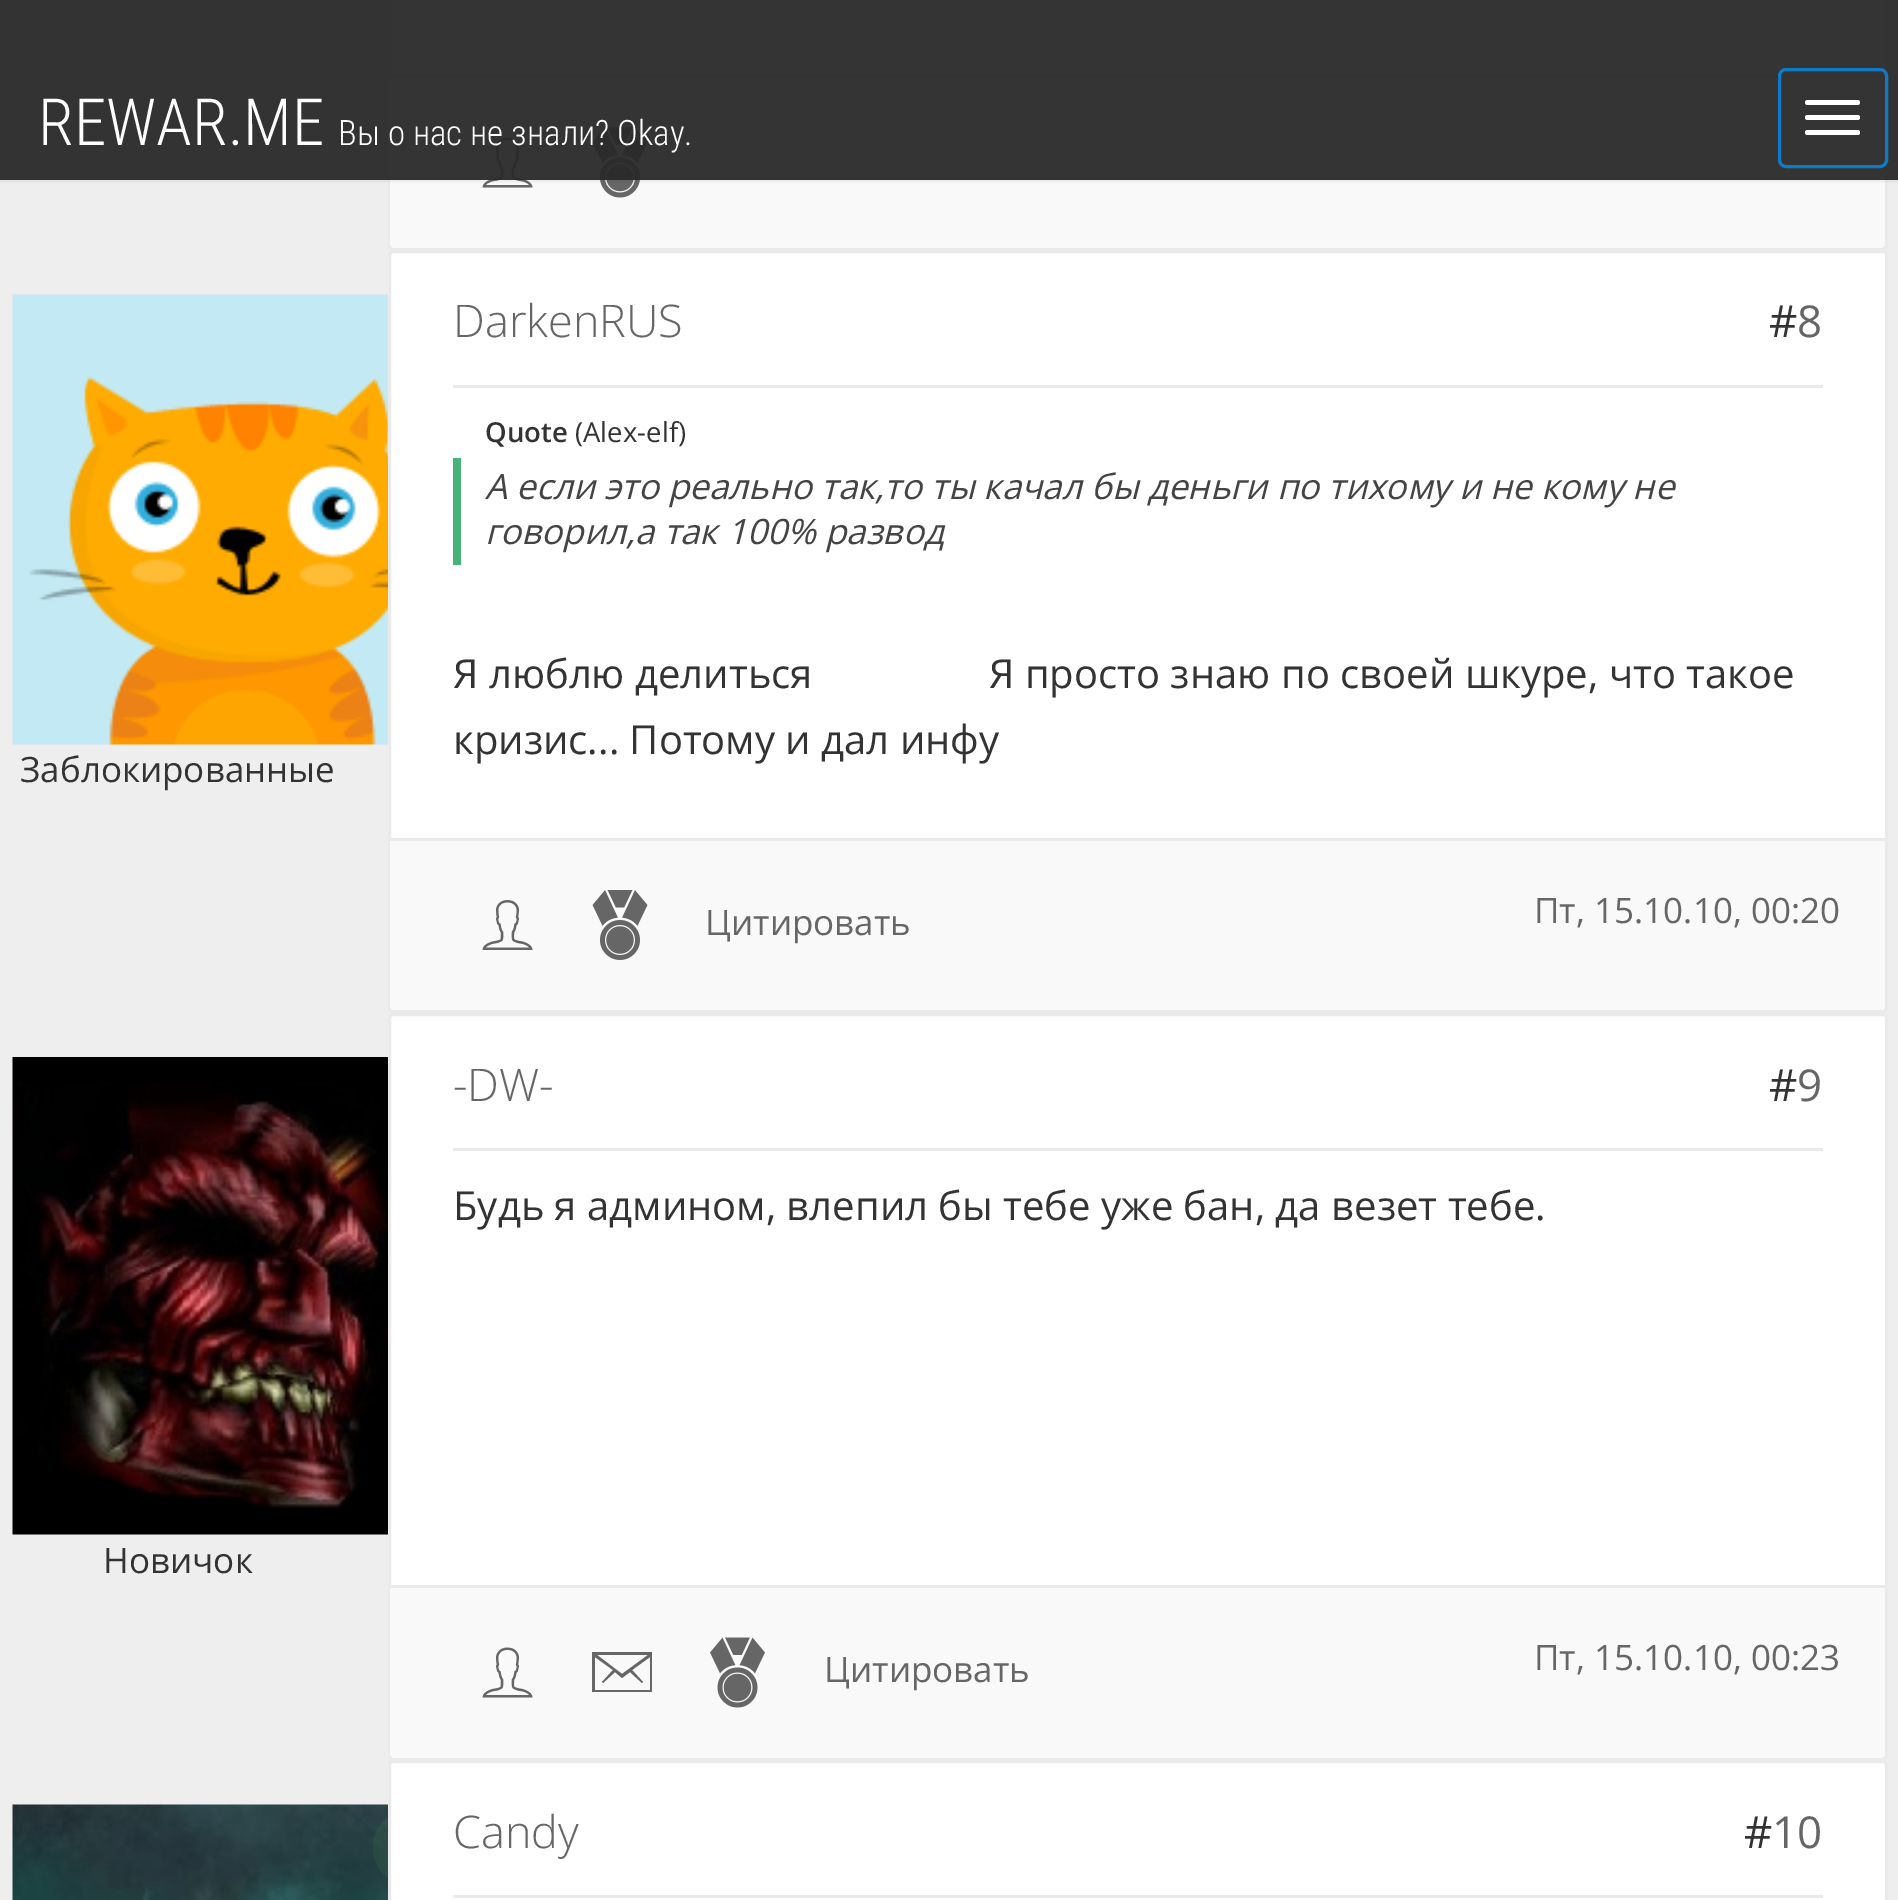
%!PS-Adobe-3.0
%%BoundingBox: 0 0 1898 1900
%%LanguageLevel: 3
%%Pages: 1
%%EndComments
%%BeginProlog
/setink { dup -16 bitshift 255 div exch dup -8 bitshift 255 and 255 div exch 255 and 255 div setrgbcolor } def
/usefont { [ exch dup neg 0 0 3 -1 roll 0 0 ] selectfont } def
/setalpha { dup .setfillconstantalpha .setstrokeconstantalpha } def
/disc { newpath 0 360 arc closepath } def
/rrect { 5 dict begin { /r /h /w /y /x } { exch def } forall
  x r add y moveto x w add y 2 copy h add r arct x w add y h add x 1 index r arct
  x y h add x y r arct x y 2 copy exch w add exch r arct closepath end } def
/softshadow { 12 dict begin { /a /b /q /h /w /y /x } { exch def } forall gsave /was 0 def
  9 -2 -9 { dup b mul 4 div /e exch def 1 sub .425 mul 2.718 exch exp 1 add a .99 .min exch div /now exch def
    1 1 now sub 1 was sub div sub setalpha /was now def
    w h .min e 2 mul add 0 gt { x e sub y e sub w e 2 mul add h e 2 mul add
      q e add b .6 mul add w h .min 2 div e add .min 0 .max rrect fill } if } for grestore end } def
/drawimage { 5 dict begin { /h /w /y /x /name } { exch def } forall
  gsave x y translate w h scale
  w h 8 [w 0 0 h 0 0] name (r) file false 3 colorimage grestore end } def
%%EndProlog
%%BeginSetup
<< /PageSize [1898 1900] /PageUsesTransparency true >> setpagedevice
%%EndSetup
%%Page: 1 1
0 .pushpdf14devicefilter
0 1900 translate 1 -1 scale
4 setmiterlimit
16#EEEEEE setink
0 0 1898 1900 rectfill
16#FFFFFF setink
389.5 -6.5 1497 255 3.5 rrect gsave fill grestore
16#EAEAEA setink
3 setlinewidth
stroke
16#F9F9F9 setink
390 78 moveto 1885 78 lineto 1885 243 lineto 1885 246 1883 248 1880 248 curveto 395 248 lineto 392 248 390 246 390 243 curveto closepath fill
16#EAEAEA setink
390 75 1495 3 rectfill
(img1.raw) 482 137 51 51 drawimage
(img2.raw) 592 127 56 71 drawimage
gsave
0 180 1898 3 rectclip
16#000000 setink
0 0 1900 180 0 4 0.1 softshadow
grestore
0.95 setalpha
16#292929 setink
0 0 1898 180 rectfill
/RobotoCondensed-Light 65 usefont
1 setalpha
16#FFFFFF setink
38 145 moveto (REWAR.ME) show
/RobotoCondensed-Light 35 usefont
338 145 moveto (Вы о нас не знали? Okay.) show
16#107AC6 setink
1779.5 69.5 107 97 6.5 rrect stroke
16#FFFFFF setink
1805 100 55 5 2.5 rrect fill
1805 115 55 5 2.5 rrect fill
1805 130 55 5 2.5 rrect fill
(img3.raw) 12 294 376 451 drawimage
/OpenSans-Regular 35 usefont
16#333333 setink
20 782 moveto (Заблокированные) show
16#FFFFFF setink
389.5 251.5 1497 760 3.5 rrect gsave fill grestore
16#EAEAEA setink
stroke
/OpenSans-Light 45 usefont
16#666666 setink
453 337 moveto (DarkenRUS) show
/OpenSans-Regular 44 usefont
16#333333 setink
1769 337 moveto (#) show
16#666666 setink
1797 337 moveto (8) show
16#EAEAEA setink
453 385 1370 3 rectfill
/OpenSans-SemiBold 27.5 usefont
16#333333 setink
485 442 moveto (Quote) show
/OpenSans-Regular 27.5 usefont
575 442 moveto (\(Alex-elf\)) show
16#47B475 setink
453 458 8 107 rectfill
/OpenSans-Italic 35 usefont
16#444444 setink
485 499 moveto (А если это реально так,то ты качал бы деньги по тихому и не кому не) show
485 544 moveto (говорил,а так 100% развод) show
/OpenSans-Regular 40 usefont
16#333333 setink
[
    [(Я люблю делиться) 453 688]
    [(Я просто знаю по своей шкуре, что такое) 989 688]
    [(кризис... Потому и дал инфу) 453 754]
] { aload pop moveto show } forall
16#F9F9F9 setink
390 840 moveto 1885 840 lineto 1885 1005 lineto 1885 1008 1883 1010 1880 1010 curveto 395 1010 lineto 392 1010 390 1008 390 1005 curveto closepath fill
16#EAEAEA setink
390 838 1495 3 rectfill
(img4.raw) 482 900 51 50 drawimage
(img5.raw) 592 890 56 70 drawimage
/OpenSans-Regular 35 usefont
16#666666 setink
705 935 moveto (Цитировать) show
1534 923 moveto (Пт, 15.10.10, 00:20) show
(img6.raw) 12 1057 376 478 drawimage
16#333333 setink
103 1573 moveto (Новичок) show
16#FFFFFF setink
389.5 1014.5 1497 744 3.5 rrect gsave fill grestore
16#EAEAEA setink
stroke
/OpenSans-Light 45 usefont
16#666666 setink
453 1101 moveto (-DW-) show
/OpenSans-Regular 44 usefont
16#333333 setink
1769 1101 moveto (#) show
16#666666 setink
1797 1101 moveto (9) show
16#EAEAEA setink
453 1148 1370 3 rectfill
/OpenSans-Regular 40 usefont
16#333333 setink
453 1220 moveto (Будь я админом, влепил бы тебе уже бан, да везет тебе.) show
16#F9F9F9 setink
390 1588 moveto 1885 1588 lineto 1885 1753 lineto 1885 1756 1883 1758 1880 1758 curveto 395 1758 lineto 392 1758 390 1756 390 1753 curveto closepath fill
16#EAEAEA setink
390 1585 1495 3 rectfill
(img1.raw) 482 1647 51 51 drawimage
16#666666 setink
592 1652 moveto 652 1652 lineto 652 1692 lineto 592 1692 lineto closepath 622 1674 moveto 648 1655 lineto 597 1655 lineto closepath 595 1690 moveto 650 1690 lineto 650 1657 lineto 632 1670 lineto 643 1682 lineto 642 1683 lineto 630 1672 lineto 622 1678 lineto 615 1672 lineto 603 1683 lineto 602 1682 lineto 613 1670 lineto 595 1657 lineto closepath fill
(img7.raw) 710 1637 55 71 drawimage
/OpenSans-Regular 35 usefont
824 1682 moveto (Цитировать) show
1534 1670 moveto (Пт, 15.10.10, 00:23) show
(img8.raw) 12 1804 376 96 drawimage
0.1 setalpha
16#4CAF50 setink
410.5 1847.5 37.5 disc fill
1 setalpha
16#FFFFFF setink
389.5 1761.5 1497 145 3.5 rrect gsave fill grestore
16#EAEAEA setink
stroke
/OpenSans-Light 45 usefont
16#666666 setink
453 1848 moveto (Candy) show
/OpenSans-Regular 44 usefont
16#333333 setink
1744 1848 moveto (#) show
16#666666 setink
1772 1848 moveto (10) show
16#EAEAEA setink
453 1895 1370 3 rectfill
.poppdf14devicefilter showpage
%%EOF
